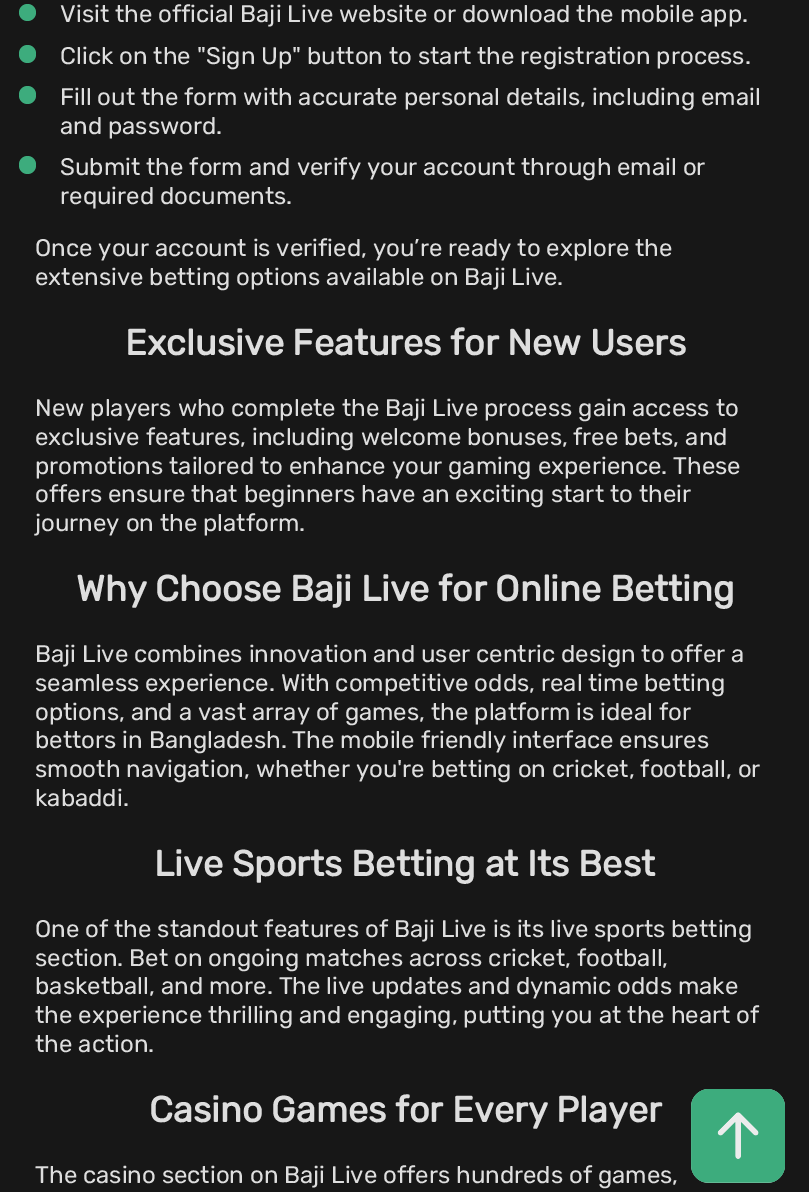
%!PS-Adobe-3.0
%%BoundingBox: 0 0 809 1192
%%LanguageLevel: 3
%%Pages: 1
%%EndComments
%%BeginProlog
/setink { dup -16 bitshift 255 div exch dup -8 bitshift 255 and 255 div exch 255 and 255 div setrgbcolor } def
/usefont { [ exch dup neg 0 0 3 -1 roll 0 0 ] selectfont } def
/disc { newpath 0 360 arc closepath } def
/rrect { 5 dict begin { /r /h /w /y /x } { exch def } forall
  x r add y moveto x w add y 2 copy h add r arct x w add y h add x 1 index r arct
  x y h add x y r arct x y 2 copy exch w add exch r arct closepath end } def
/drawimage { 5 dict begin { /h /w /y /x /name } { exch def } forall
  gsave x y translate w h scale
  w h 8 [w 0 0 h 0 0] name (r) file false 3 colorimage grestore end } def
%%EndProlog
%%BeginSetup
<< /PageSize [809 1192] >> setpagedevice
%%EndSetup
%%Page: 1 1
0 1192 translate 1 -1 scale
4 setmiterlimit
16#171717 setink
0 0 809 1192 rectfill
16#3DAC7D setink
27.5 12.5 8.5 disc fill
/Rubik-Regular 24 usefont
16#DEDEDE setink
60 22 moveto (Visit the official Baji Live website or download the mobile app.) show
16#3DAC7D setink
19 45 17 18 8.5 rrect fill
16#DEDEDE setink
60 64 moveto (Click on the "Sign Up" button to start the registration process.) show
16#3DAC7D setink
19 86 17 18 8.5 rrect fill
16#DEDEDE setink
60 105 moveto (Fill out the form with accurate personal details, including email) show
60 134 moveto (and password.) show
16#3DAC7D setink
19 156 17 18 8.5 rrect fill
16#DEDEDE setink
[
    [(Submit the form and verify your account through email or) 60 175]
    [(required documents.) 60 204]
    [(Once your account is verified, you’re ready to explore the) 35 256]
    [(extensive betting options available on Baji Live.) 35 285]
] { aload pop moveto show } forall
/Rubik-Bold 36 usefont
125 355 moveto (Exclusive Features for New Users) show
/Rubik-Regular 24 usefont
[
    [(New players who complete the Baji Live process gain access to) 35 416]
    [(exclusive features, including welcome bonuses,) 35 445]
    [(free bets, and) 573 445]
    [(promotions tailored to enhance your gaming experience. These) 35 474]
    [(offers ensure that beginners have an exciting start to their) 35 502]
    [(journey on the platform.) 35 531]
] { aload pop moveto show } forall
/Rubik-Bold 36 usefont
76 601 moveto (Why Choose Baji Live for Online Betting) show
/Rubik-Regular 24 usefont
[
    [(Baji Live combines innovation and user centric design to offer a) 35 662]
    [(seamless experience. With competitive odds, real) 35 691]
    [(time betting) 588 691]
    [(options, and a vast array of games, the platform is ideal for) 35 720]
    [(bettors in Bangladesh. The mobile friendly) 35 748]
    [(interface ensures) 512 748]
    [(smooth navigation, whether you're betting on cricket, football, or) 35 777]
    [(kabaddi.) 35 806]
] { aload pop moveto show } forall
/Rubik-Bold 36 usefont
154 876 moveto (Live Sports Betting at Its Best) show
/Rubik-Regular 24 usefont
[
    [(One of the standout features of Baji Live is its live sports betting) 35 937]
    [(section. Bet on ongoing matches across cricket,) 35 966]
    [(football,) 577 966]
    [(basketball, and more. The live updates and dynamic odds make) 35 994]
    [(the experience thrilling and engaging, putting you at the heart of) 35 1023]
    [(the action.) 35 1052]
] { aload pop moveto show } forall
/Rubik-Bold 36 usefont
149 1122 moveto (Casino Games for Every Player) show
/Rubik-Regular 24 usefont
35 1183 moveto (The casino section on Baji Live offers hundreds of games,) show
16#ECECEC setink
691 1089 94 94 18 rrect fill
(img1.raw) 691 1089 94 94 drawimage
(img2.raw) 691 1089 94 94 drawimage
showpage
%%EOF
